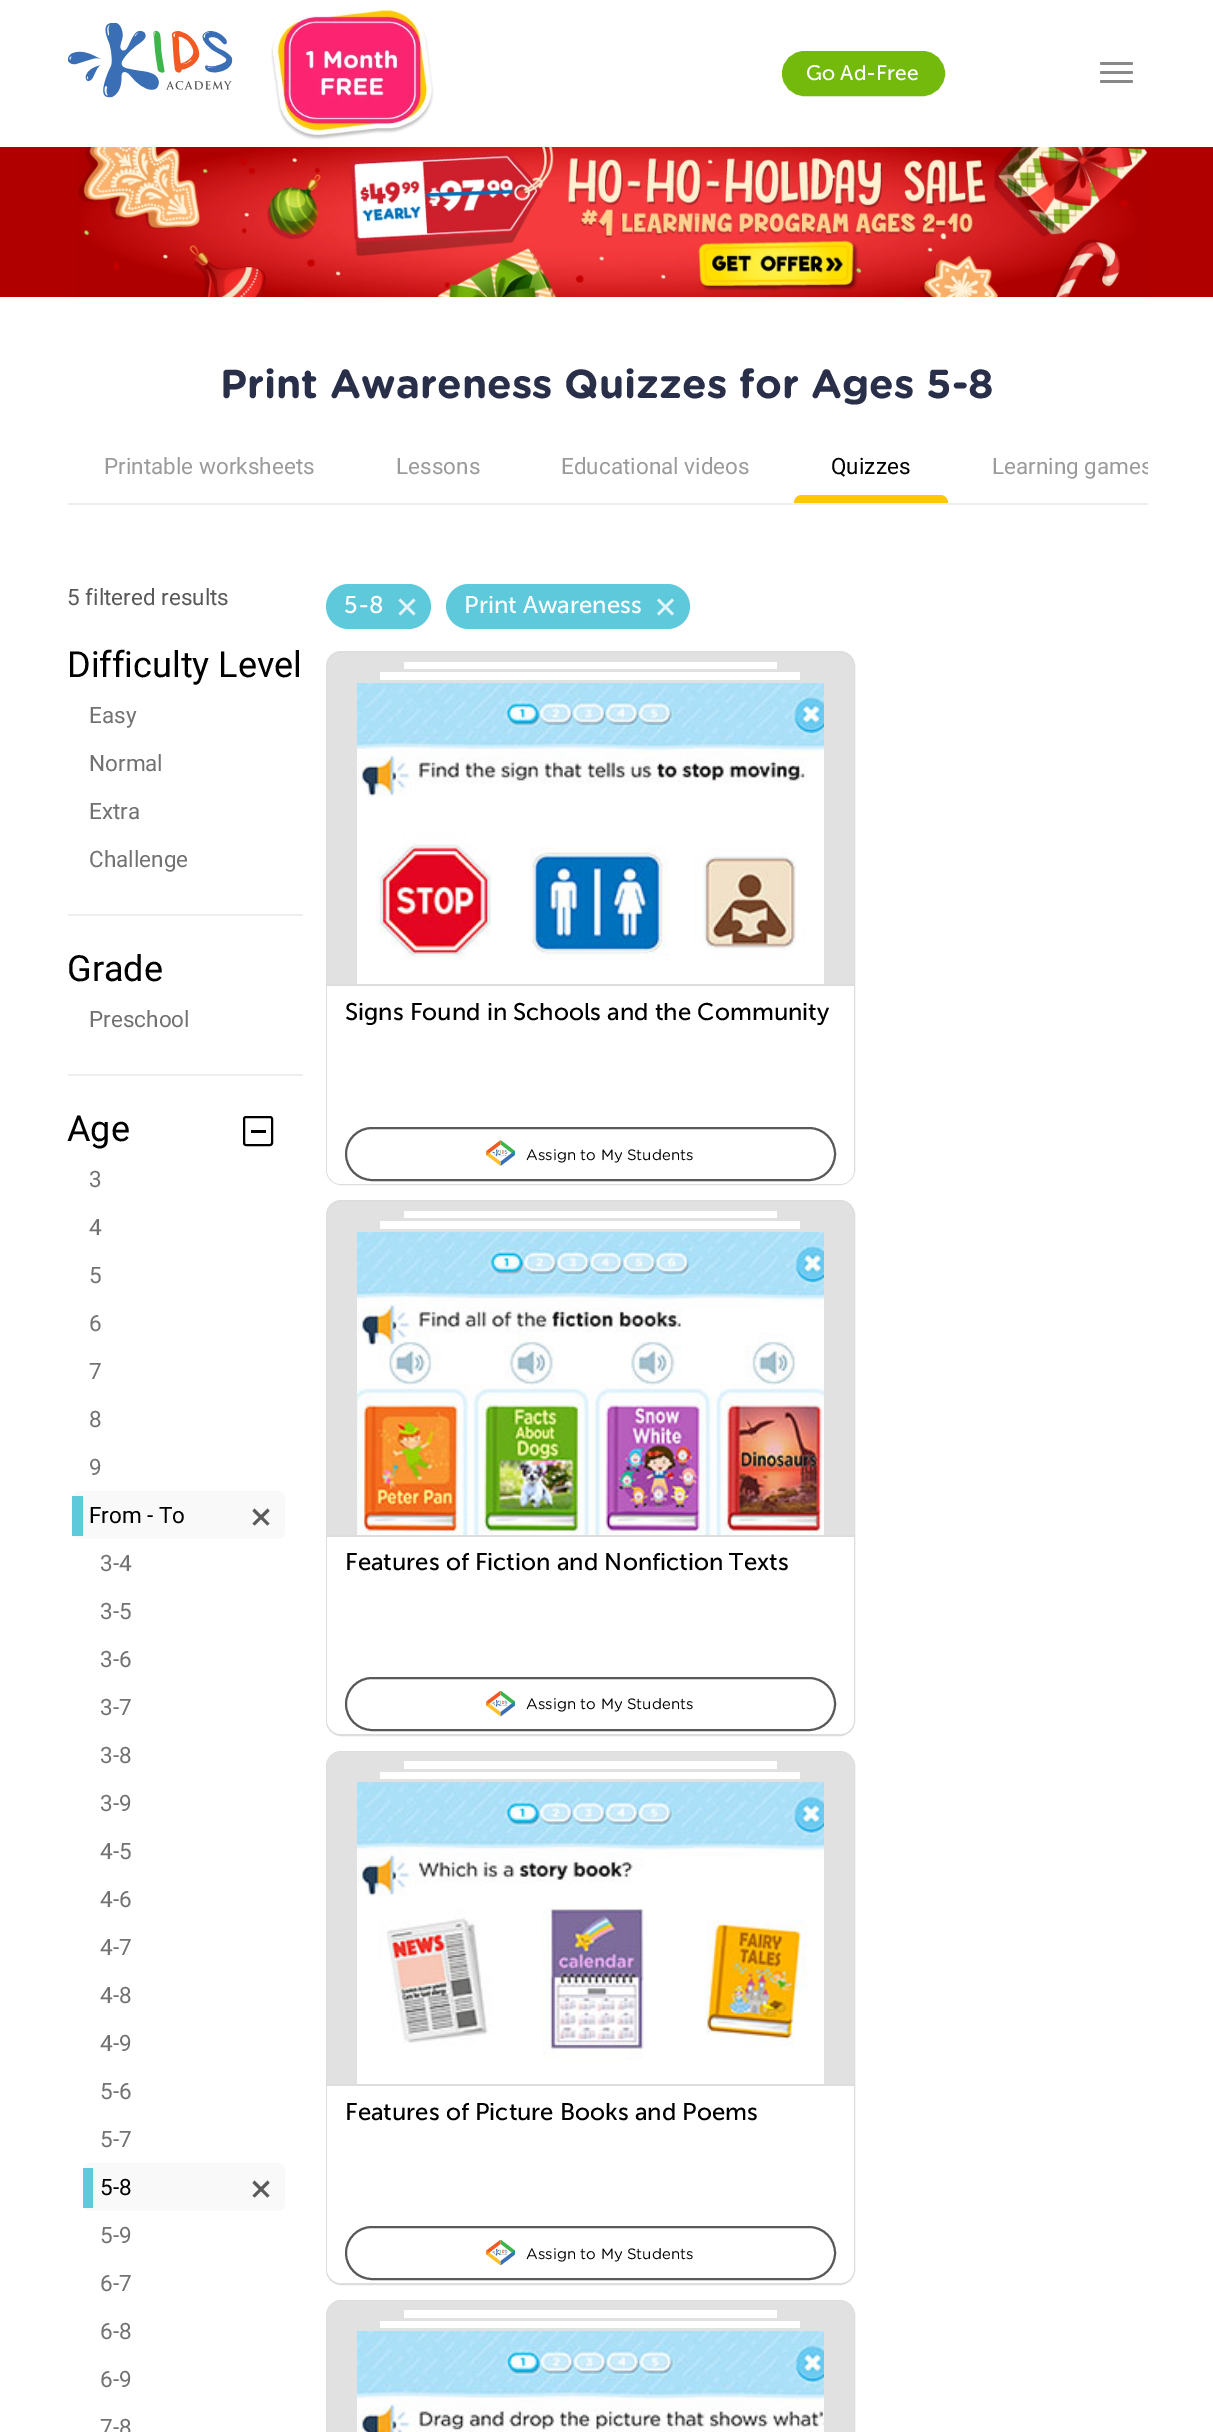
%!PS-Adobe-3.0
%%BoundingBox: 0 0 1213 2432
%%LanguageLevel: 3
%%Pages: 1
%%EndComments
%%BeginProlog
/setink { dup -16 bitshift 255 div exch dup -8 bitshift 255 and 255 div exch 255 and 255 div setrgbcolor } def
/usefont { [ exch dup neg 0 0 3 -1 roll 0 0 ] selectfont } def
/rrect { 5 dict begin { /r /h /w /y /x } { exch def } forall
  x r add y moveto x w add y 2 copy h add r arct x w add y h add x 1 index r arct
  x y h add x y r arct x y 2 copy exch w add exch r arct closepath end } def
/drawimage { 5 dict begin { /h /w /y /x /name } { exch def } forall
  gsave x y translate w h scale
  w h 8 [w 0 0 h 0 0] name (r) file false 3 colorimage grestore end } def
%%EndProlog
%%BeginSetup
<< /PageSize [1213 2432] >> setpagedevice
%%EndSetup
%%Page: 1 1
0 2432 translate 1 -1 scale
4 setmiterlimit
16#FFFFFF setink
0 0 1213 2432 rectfill
(img1.raw) 271 9 163 131 drawimage
(img2.raw) 68 23 165 75 drawimage
16#73BA0C setink
783 52 161 43 21.5 rrect gsave fill grestore
2 setlinewidth
stroke
/MuseoSans-Regular 21 usefont
16#FFFFFF setink
806 80 moveto (Go Ad-Free) show
16#888888 setink
1100 62 33 3 1.5 rrect fill
1100 71 33 3 1.5 rrect fill
1100 80 33 3 1.5 rrect fill
16#B10000 setink
0 147 1213 150 rectfill
(img3.raw) 77 147 1071 150 drawimage
/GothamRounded-Bold 40.5 usefont
16#292E49 setink
220 398 moveto (Print Awareness Quizzes for Ages 5-8) show
16#EEEEEE setink
68 503 1080 2 rectfill
/Roboto-Regular 22.5 usefont
16#9B9B9B setink
[
    [(Printable worksheets) 104 474]
    [(Lessons) 396 474]
    [(Educational videos) 561 474]
] { aload pop moveto show } forall
16#000000 setink
831 474 moveto (Quizzes) show
16#FFC60A setink
802 495 moveto 940 495 lineto 944.5 495 948 498.5 948 503 curveto 794 503 lineto 794 498.5 797.5 495 802 495 curveto closepath fill
gsave
68 450 1080 66 rectclip
16#9B9B9B setink
992 474 moveto (Learning games) show
grestore
16#595959 setink
67 605 moveto (5 filtered results) show
/Roboto-Regular 36 usefont
16#000000 setink
67 677 moveto (Difficulty Level) show
/Roboto-Regular 22.5 usefont
16#727272 setink
[
    [(Easy) 89 723]
    [(Normal) 89 771]
    [(Extra) 89 819]
    [(Challenge) 89 867]
] { aload pop moveto show } forall
16#EEEEEE setink
68 914 235 2 rectfill
/Roboto-Regular 36 usefont
16#000000 setink
67 981 moveto (Grade) show
/Roboto-Regular 22.5 usefont
16#727272 setink
89 1027 moveto (Preschool) show
16#EEEEEE setink
68 1074 235 2 rectfill
/Roboto-Regular 36 usefont
16#000000 setink
67 1141 moveto (Age) show
/Roboto-Regular 22.5 usefont
16#727272 setink
[
    [(3) 89 1187]
    [(4) 89 1235]
    [(5) 89 1283]
    [(6) 89 1331]
    [(7) 89 1379]
    [(8) 89 1427]
    [(9) 89 1475]
] { aload pop moveto show } forall
16#F9F9F9 setink
72 1491 213 48 8 rrect fill
16#5DC9DB setink
72 1496 11 40 rectfill
16#000000 setink
89 1523 moveto (From - To) show
16#5B5B5B setink
267.5 1508.5 moveto 269.5 1511 lineto 254.5 1525.5 lineto 252.5 1523.5 lineto closepath fill
252.5 1511 moveto 254.5 1508.5 lineto 269.5 1523.5 lineto 267.5 1525.5 lineto closepath fill
16#727272 setink
[
    [(3-4) 100 1571]
    [(3-5) 100 1619]
    [(3-6) 100 1667]
    [(3-7) 100 1715]
    [(3-8) 100 1763]
    [(3-9) 100 1811]
    [(4-5) 100 1859]
    [(4-6) 100 1907]
    [(4-7) 100 1955]
    [(4-8) 100 2003]
    [(4-9) 100 2051]
    [(5-6) 100 2099]
    [(5-7) 100 2147]
] { aload pop moveto show } forall
16#F9F9F9 setink
83 2163 202 48 8 rrect fill
16#5DC9DB setink
83 2168 10 40 rectfill
16#000000 setink
100 2195 moveto (5-8) show
16#5B5B5B setink
267.5 2180.5 moveto 269.5 2183 lineto 254.5 2197.5 lineto 252.5 2195.5 lineto closepath fill
252.5 2183 moveto 254.5 2180.5 lineto 269.5 2195.5 lineto 267.5 2197.5 lineto closepath fill
16#727272 setink
[
    [(5-9) 100 2243]
    [(6-7) 100 2291]
    [(6-8) 100 2339]
    [(6-9) 100 2387]
    [(7-8) 100 2435]
] { aload pop moveto show } forall
16#000000 setink
244 1117 28 28 2 rrect stroke
251 1130 15 3 rectfill
16#5DC9DB setink
326 584 105 45 22.5 rrect fill
/MuseoSans-Regular 24 usefont
16#FFFFFF setink
344 613 moveto (5-8) show
16#DFF4F8 setink
413.5 598.5 moveto 415.5 600.5 lineto 400.5 615.5 lineto 398.5 613.5 lineto closepath fill
398.5 600.5 moveto 400.5 598.5 lineto 415.5 613.5 lineto 413.5 615.5 lineto closepath fill
16#5DC9DB setink
446 584 244 45 22.5 rrect fill
16#FFFFFF setink
464 613 moveto (Print Awareness) show
16#DFF4F8 setink
672 598.5 moveto 674 600.5 lineto 659 615.5 lineto 657 613.5 lineto closepath fill
657 600.5 moveto 659 598.5 lineto 674 613.5 lineto 672 615.5 lineto closepath fill
16#DDDDDD setink
327 652 527 532 14 rrect stroke
(img4.raw) 340 683 484 501 drawimage
16#E1E1E1 setink
341 653 moveto 840 653 lineto 847.5 653 854 659.5 854 667 curveto 854 683 lineto 327 683 lineto 327 667 lineto 327 659.5 333.5 653 341 653 curveto closepath fill
824 653 moveto 840 653 lineto 847.5 653 854 659.5 854 667 curveto 854 1170 lineto 854 1177.5 847.5 1184 840 1184 curveto 824 1184 lineto closepath fill
341 653 moveto 357 653 lineto 357 1184 lineto 341 1184 lineto 333.5 1184 327 1177.5 327 1170 curveto 327 667 lineto 327 659.5 333.5 653 341 653 curveto closepath fill
16#FFFFFF setink
404 662 373 7 rectfill
380 672 420 8 rectfill
327 984 moveto 854 984 lineto 854 1170 lineto 854 1177.5 847.5 1184 840 1184 curveto 341 1184 lineto 333.5 1184 327 1177.5 327 1170 curveto closepath fill
16#DDDDDD setink
327 984 527 2 rectfill
16#000000 setink
345 1020 moveto (Signs Found in Schools and the Community) show
16#595959 setink
346 1128 489 52 26 rrect stroke
(img5.raw) 486 1140 29 26 drawimage
/GothamRounded-Regular 15 usefont
16#000000 setink
526 1160 moveto (Assign to My Students) show
16#DDDDDD setink
327 1201 527 534 14 rrect stroke
(img6.raw) 357 1232 467 303 drawimage
16#E1E1E1 setink
341 1202 moveto 840 1202 lineto 847.5 1202 854 1208.5 854 1216 curveto 854 1232 lineto 327 1232 lineto 327 1216 lineto 327 1208.5 333.5 1202 341 1202 curveto closepath fill
824 1202 moveto 840 1202 lineto 847.5 1202 854 1208.5 854 1216 curveto 854 1720 lineto 854 1727.5 847.5 1734 840 1734 curveto 824 1734 lineto closepath fill
341 1202 moveto 357 1202 lineto 357 1734 lineto 341 1734 lineto 333.5 1734 327 1727.5 327 1720 curveto 327 1216 lineto 327 1208.5 333.5 1202 341 1202 curveto closepath fill
16#FFFFFF setink
404 1211 373 7 rectfill
380 1221 420 8 rectfill
327 1535 moveto 854 1535 lineto 854 1720 lineto 854 1727.5 847.5 1734 840 1734 curveto 341 1734 lineto 333.5 1734 327 1727.5 327 1720 curveto closepath fill
16#DDDDDD setink
327 1535 527 2 rectfill
/MuseoSans-Regular 24 usefont
16#000000 setink
345 1570 moveto (Features of Fiction and Nonfiction Texts) show
16#595959 setink
346 1678 489 52 26 rrect stroke
(img7.raw) 486 1691 29 26 drawimage
/GothamRounded-Regular 15 usefont
16#000000 setink
526 1709 moveto (Assign to My Students) show
16#DDDDDD setink
327 1752 527 532 14 rrect stroke
(img8.raw) 357 1782 467 302 drawimage
16#E1E1E1 setink
341 1752 moveto 840 1752 lineto 847.5 1752 854 1758.5 854 1766 curveto 854 1782 lineto 327 1782 lineto 327 1766 lineto 327 1758.5 333.5 1752 341 1752 curveto closepath fill
824 1752 moveto 840 1752 lineto 847.5 1752 854 1758.5 854 1766 curveto 854 2269 lineto 854 2276.5 847.5 2283 840 2283 curveto 824 2283 lineto closepath fill
341 1752 moveto 357 1752 lineto 357 2283 lineto 341 2283 lineto 333.5 2283 327 2276.5 327 2269 curveto 327 1766 lineto 327 1758.5 333.5 1752 341 1752 curveto closepath fill
16#FFFFFF setink
404 1761 373 8 rectfill
380 1772 420 7 rectfill
327 2084 moveto 854 2084 lineto 854 2269 lineto 854 2276.5 847.5 2283 840 2283 curveto 341 2283 lineto 333.5 2283 327 2276.5 327 2269 curveto closepath fill
16#DDDDDD setink
327 2084 527 2 rectfill
/MuseoSans-Regular 24 usefont
16#000000 setink
345 2120 moveto (Features of Picture Books and Poems) show
16#595959 setink
346 2227 489 52 26 rrect stroke
(img7.raw) 486 2240 29 26 drawimage
/GothamRounded-Regular 15 usefont
16#000000 setink
526 2259 moveto (Assign to My Students) show
16#DDDDDD setink
327 2301 527 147 14 rrect stroke
(img9.raw) 357 2331 467 101 drawimage
16#E1E1E1 setink
341 2301 moveto 840 2301 lineto 847.5 2301 854 2307.5 854 2315 curveto 854 2331 lineto 327 2331 lineto 327 2315 lineto 327 2307.5 333.5 2301 341 2301 curveto closepath fill
824 2301 moveto 840 2301 lineto 847.5 2301 854 2307.5 854 2315 curveto 854 2432 lineto 854 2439.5 847.5 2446 840 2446 curveto 824 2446 lineto closepath fill
341 2301 moveto 357 2301 lineto 357 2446 lineto 341 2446 lineto 333.5 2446 327 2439.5 327 2432 curveto 327 2315 lineto 327 2307.5 333.5 2301 341 2301 curveto closepath fill
16#FFFFFF setink
404 2310 373 8 rectfill
380 2321 420 7 rectfill
showpage
%%EOF
